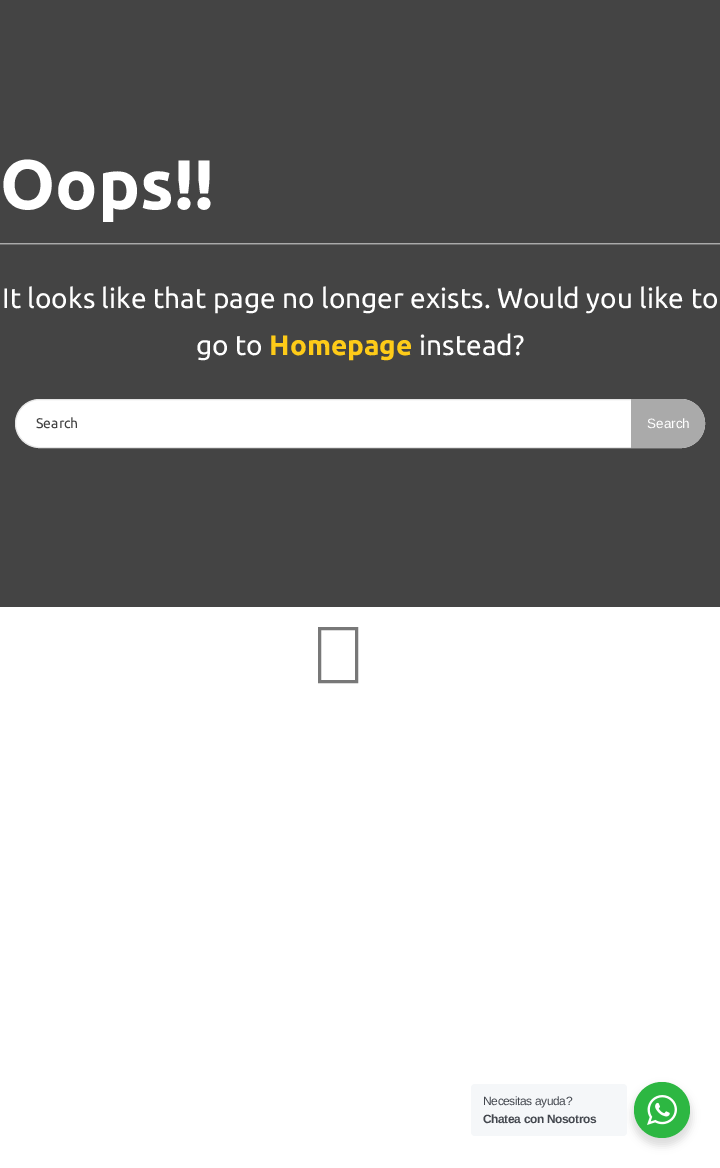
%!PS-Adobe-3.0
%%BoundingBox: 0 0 720 1168
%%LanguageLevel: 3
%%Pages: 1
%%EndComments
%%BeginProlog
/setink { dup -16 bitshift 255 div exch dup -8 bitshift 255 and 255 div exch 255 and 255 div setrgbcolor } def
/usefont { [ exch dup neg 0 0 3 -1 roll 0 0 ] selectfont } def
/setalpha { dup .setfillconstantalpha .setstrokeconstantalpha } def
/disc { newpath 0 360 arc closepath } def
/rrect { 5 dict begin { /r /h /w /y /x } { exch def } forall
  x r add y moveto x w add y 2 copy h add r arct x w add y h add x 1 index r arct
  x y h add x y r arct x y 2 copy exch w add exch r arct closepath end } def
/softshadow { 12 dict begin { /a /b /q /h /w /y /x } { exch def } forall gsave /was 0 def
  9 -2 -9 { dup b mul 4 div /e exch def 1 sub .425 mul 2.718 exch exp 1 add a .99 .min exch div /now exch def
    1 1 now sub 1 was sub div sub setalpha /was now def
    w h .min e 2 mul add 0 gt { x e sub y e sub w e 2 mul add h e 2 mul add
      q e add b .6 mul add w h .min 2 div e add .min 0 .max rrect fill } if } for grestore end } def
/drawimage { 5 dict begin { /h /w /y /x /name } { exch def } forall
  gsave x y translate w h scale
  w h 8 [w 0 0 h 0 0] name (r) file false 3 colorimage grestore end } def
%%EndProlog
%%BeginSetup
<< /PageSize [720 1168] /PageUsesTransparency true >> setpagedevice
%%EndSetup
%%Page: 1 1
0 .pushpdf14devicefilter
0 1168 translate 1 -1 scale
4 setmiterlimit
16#FFFFFF setink
0 0 720 1168 rectfill
[
    [0 0 720 607 16#444444]
    [0 244 720 1 16#727272]
    [0 243 720 1 16#AAAAAA]
] { aload pop setink rectfill } forall
/Ubuntu-Bold 70 usefont
16#FFFFFF setink
0 209 moveto (Oops!!) show
/Ubuntu-Regular 28 usefont
2 308 moveto (It looks like that page no longer exists. Would you like to) show
196 355 moveto (go to) show
/Ubuntu-Bold 28 usefont
16#FECB18 setink
269 355 moveto (Homepage) show
/Ubuntu-Regular 28 usefont
16#FFFFFF setink
419 355 moveto (instead?) show
15.5 399.5 689 48 24 rrect gsave fill grestore
16#E5E5E5 setink
stroke
/Ubuntu-Regular 14 usefont
16#404040 setink
36 428 moveto (Search) show
16#AAAAAA setink
631 399 moveto 680.5 399 lineto 694 399 705 410 705 423.5 curveto 705 437 694 448 680.5 448 curveto 631 448 lineto closepath fill
/LiberationSans-Regular 13.5 usefont
16#FFFFFF setink
647 428 moveto (Search) show
16#787878 setink
3 setlinewidth
319.5 628.5 37 53 rectstroke
16#000000 setink
632 1086 60 60 30 4 0.14 softshadow
16#F5F7F9 setink
471 1084 156 52 4 rrect fill
/LiberationSans-Regular 12 usefont
16#43474E setink
483 1105 moveto -0.4 0 (Necesitas ayuda?) ashow
/LiberationSans-Bold 12 usefont
483 1123 moveto -0.4 0 (Chatea con Nosotros) ashow
16#2DB742 setink
662 1110 28 disc fill
(img1.raw) 647 1095 30 30 drawimage
.poppdf14devicefilter showpage
%%EOF
